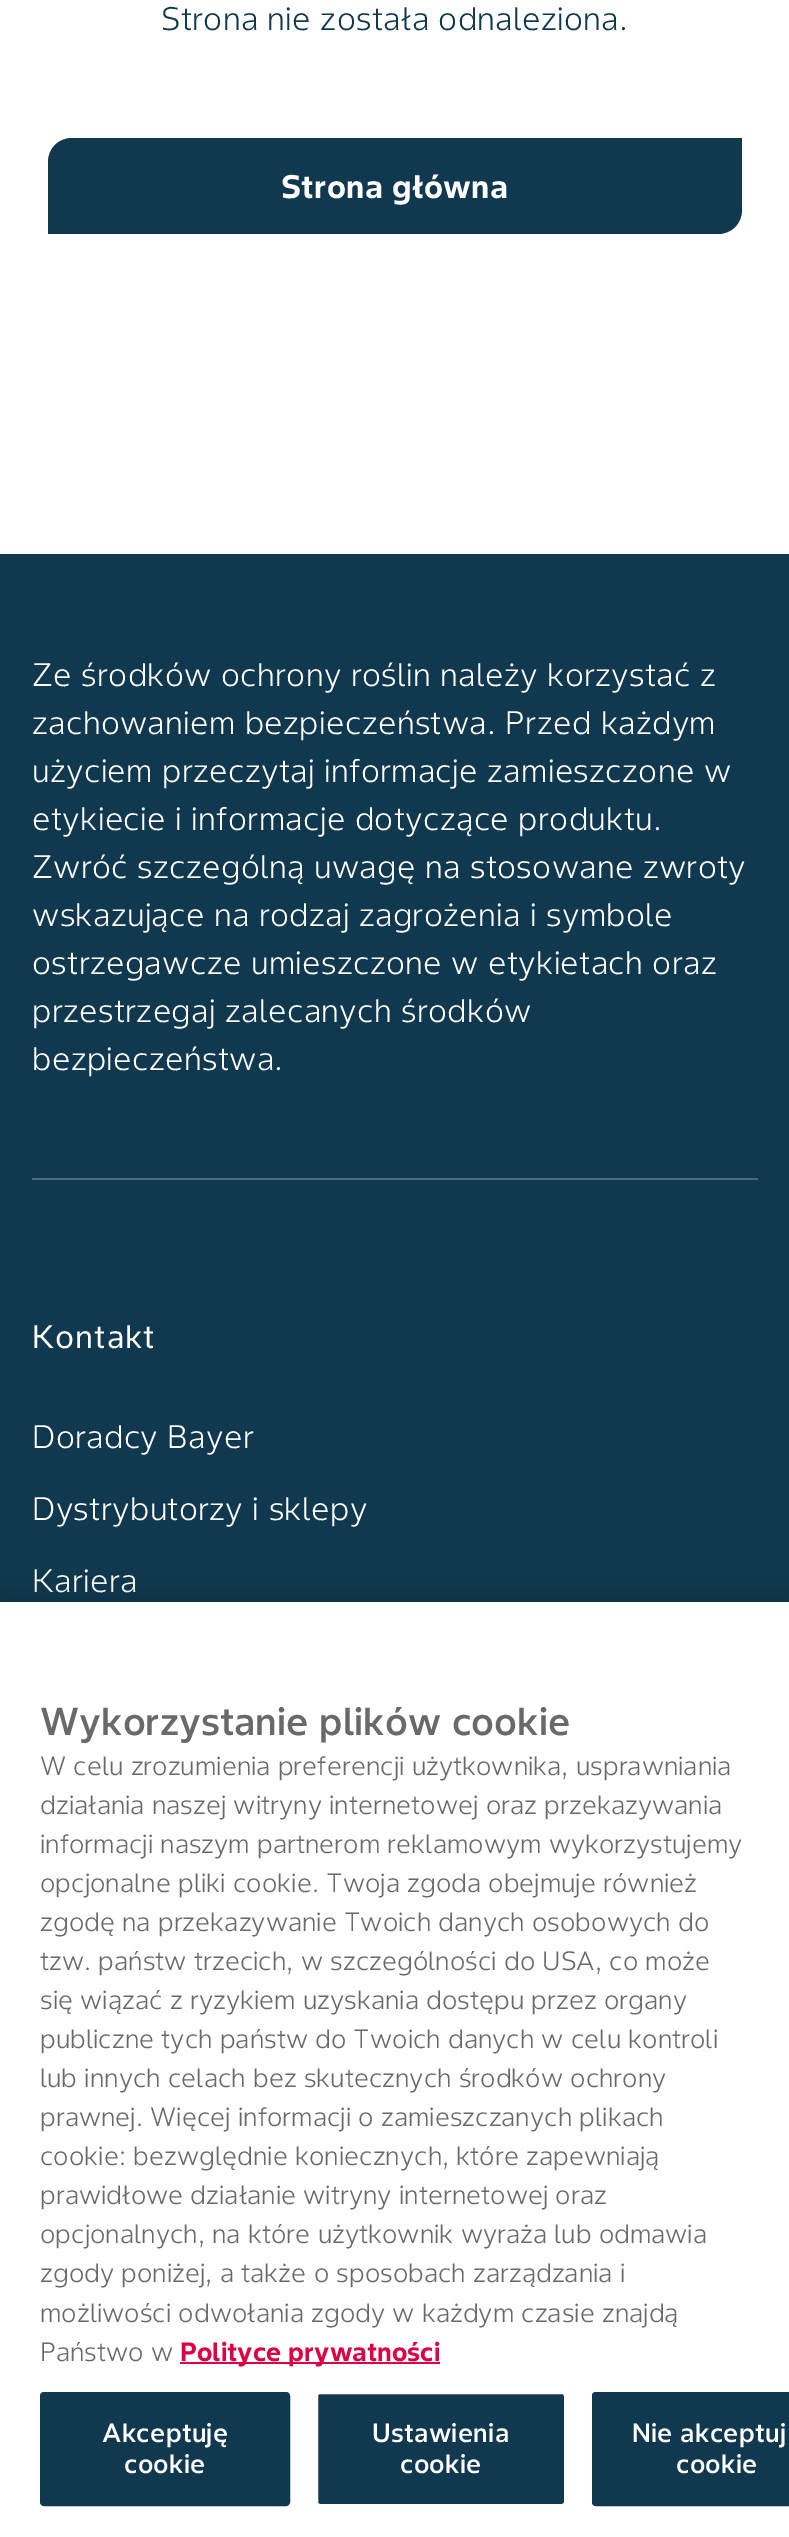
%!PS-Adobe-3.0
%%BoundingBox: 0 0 789 2537
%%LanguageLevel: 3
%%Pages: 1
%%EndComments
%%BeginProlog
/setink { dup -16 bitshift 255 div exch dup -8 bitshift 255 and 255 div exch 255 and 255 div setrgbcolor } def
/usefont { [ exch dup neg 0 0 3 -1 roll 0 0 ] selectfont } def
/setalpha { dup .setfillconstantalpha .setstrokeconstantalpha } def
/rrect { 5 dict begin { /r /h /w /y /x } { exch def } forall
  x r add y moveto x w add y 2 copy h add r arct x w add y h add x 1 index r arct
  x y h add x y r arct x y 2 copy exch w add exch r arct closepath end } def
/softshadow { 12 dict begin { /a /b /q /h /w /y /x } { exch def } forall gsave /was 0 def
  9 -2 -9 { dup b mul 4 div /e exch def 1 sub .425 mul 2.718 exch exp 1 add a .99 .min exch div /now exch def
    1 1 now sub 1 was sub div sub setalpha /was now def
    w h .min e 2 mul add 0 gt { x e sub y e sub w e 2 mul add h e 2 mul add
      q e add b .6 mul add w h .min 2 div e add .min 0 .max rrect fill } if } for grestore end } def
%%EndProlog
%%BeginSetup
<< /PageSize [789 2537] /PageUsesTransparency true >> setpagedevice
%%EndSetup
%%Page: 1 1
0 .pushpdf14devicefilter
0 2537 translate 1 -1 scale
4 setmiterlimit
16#FFFFFF setink
0 0 789 2537 rectfill
/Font-Light 32 usefont
16#10384F setink
161 30 moveto 0.3 0 (Strona nie została odnaleziona.) ashow
72 138 moveto 742 138 lineto 742 210 lineto 742 223.5 731.5 234 718 234 curveto 48 234 lineto 48 162 lineto 48 148.5 58.5 138 72 138 curveto closepath fill
/Font-Bold 32 usefont
16#FFFFFF setink
281 198 moveto 0.3 0 (Strona główna) ashow
16#10384F setink
0 554 789 1048 rectfill
16#4C6A7B setink
32 1178 726 2 rectfill
/Font-Light 32 usefont
16#FFFFFF setink
32 686 moveto 0.3 0 (Ze środków ochrony roślin należy korzystać z) ashow
32 734 moveto 0.3 0 (zachowaniem bezpieczeństwa. Przed każdym) ashow
32 782 moveto 0.3 0 (użyciem przeczytaj informacje zamieszczone w) ashow
32 830 moveto 0.3 0 (etykiecie i informacje dotyczące produktu.) ashow
32 878 moveto 0.3 0 (Zwróć szczególną uwagę na stosowane zwroty) ashow
32 926 moveto 0.3 0 (wskazujące na rodzaj zagrożenia i symbole) ashow
32 974 moveto 0.3 0 (ostrzegawcze umieszczone w etykietach oraz) ashow
32 1022 moveto 0.3 0 (przestrzegaj zalecanych środków) ashow
32 1070 moveto 0.3 0 (bezpieczeństwa.) ashow
/Font-Regular 32 usefont
32 1348 moveto 1 0 (Kontakt) ashow
/Font-Light 32 usefont
32 1448 moveto 0.3 0 (Doradcy Bayer) ashow
32 1520 moveto 0.3 0 (Dystrybutorzy i sklepy) ashow
32 1592 moveto 0.3 0 (Kariera) ashow
16#000000 setink
0 1602 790 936 0 18 0.2 softshadow
16#FFFFFF setink
0 1602 789 935 rectfill
/Font-Medium 38.4 usefont
16#696969 setink
40 1735 moveto (Wykorzystanie plików cookie) show
/Font-Light 26 usefont
[
    [(W celu zrozumienia preferencji użytkownika, usprawniania) 40 1775]
    [(działania naszej witryny internetowej oraz przekazywania) 40 1814]
    [(informacji naszym partnerom reklamowym wykorzystujemy) 40 1853]
    [(opcjonalne pliki cookie. Twoja zgoda obejmuje również) 40 1892]
    [(zgodę na przekazywanie Twoich danych osobowych do) 40 1931]
    [(tzw. państw trzecich, w szczególności do USA, co może) 40 1970]
    [(się wiązać z ryzykiem uzyskania dostępu przez organy) 40 2009]
    [(publiczne tych państw do Twoich danych w celu kontroli) 40 2048]
    [(lub innych celach bez skutecznych środków ochrony) 40 2087]
    [(prawnej. Więcej informacji o zamieszczanych plikach) 40 2126]
    [(cookie: bezwględnie koniecznych, które zapewniają) 40 2165]
    [(prawidłowe działanie witryny internetowej oraz) 40 2204]
    [(opcjonalnych, na które użytkownik wyraża lub odmawia) 40 2243]
    [(zgody poniżej, a także o sposobach zarządzania i) 40 2282]
    [(możliwości odwołania zgody w każdym czasie znajdą) 40 2322]
    [(Państwo w) 40 2361]
] { aload pop moveto show } forall
16#DE0043 setink
180 2362 260 2 rectfill
/Font-Bold 26 usefont
180 2361 moveto (Polityce prywatności) show
16#10384F setink
41 2393 248 112 3 rrect gsave fill grestore
2 setlinewidth
stroke
/Font-Medium 26 usefont
16#FFFFFF setink
102 2442 moveto 0.25 0 (Akceptuję) ashow
124 2473 moveto 0.25 0 (cookie) ashow
16#10384F setink
317 2393 248 112 3 rrect gsave fill grestore
16#FFFFFF setink
stroke
372 2442 moveto 0.25 0 (Ustawienia) ashow
400 2473 moveto 0.25 0 (cookie) ashow
16#10384F setink
596 2392 moveto 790 2392 lineto 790 2506 lineto 596 2506 lineto 594 2506 592 2504 592 2502 curveto 592 2396 lineto 592 2394 594 2392 596 2392 curveto closepath fill
593 2393 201 112 3 rrect stroke
16#FFFFFF setink
632 2442 moveto 0.25 0 (Nie akceptuj) ashow
676 2473 moveto 0.25 0 (cookie) ashow
.poppdf14devicefilter showpage
%%EOF
